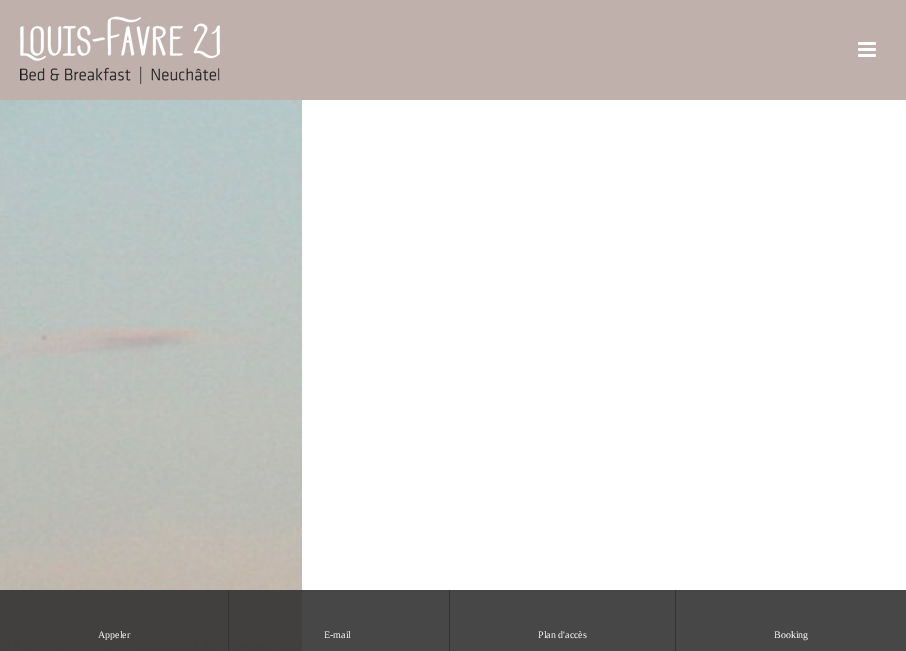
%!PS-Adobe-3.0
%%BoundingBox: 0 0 906 651
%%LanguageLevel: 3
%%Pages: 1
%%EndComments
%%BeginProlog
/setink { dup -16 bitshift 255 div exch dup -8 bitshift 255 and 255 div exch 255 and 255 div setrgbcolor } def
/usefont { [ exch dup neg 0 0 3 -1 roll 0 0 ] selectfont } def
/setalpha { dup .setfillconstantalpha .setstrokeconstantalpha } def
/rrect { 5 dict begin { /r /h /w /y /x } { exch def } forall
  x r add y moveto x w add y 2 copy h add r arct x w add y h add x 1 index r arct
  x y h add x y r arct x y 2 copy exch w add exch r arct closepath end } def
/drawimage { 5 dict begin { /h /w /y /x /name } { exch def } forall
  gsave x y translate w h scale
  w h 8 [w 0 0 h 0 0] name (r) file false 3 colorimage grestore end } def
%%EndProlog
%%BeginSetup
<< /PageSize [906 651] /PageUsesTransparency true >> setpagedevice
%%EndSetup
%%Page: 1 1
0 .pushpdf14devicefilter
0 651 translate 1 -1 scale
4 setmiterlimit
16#FFFFFF setink
0 0 906 651 rectfill
16#BFB0AC setink
0 0 906 100 rectfill
(img1.raw) 20 16 200 68 drawimage
16#FFFFFF setink
858 42 18 3 1.5 rrect fill
858 48 18 3 1.5 rrect fill
858 54 18 3 1.5 rrect fill
(img2.raw) 0 100 302 551 drawimage
0.9 setalpha
16#333333 setink
0 590 906 61 rectfill
1 setalpha
228 590 1 61 rectfill
/LiberationSerif-Regular 10 usefont
16#FFFFFF setink
98 638 moveto (Appeler) show
16#333333 setink
449 590 1 61 rectfill
16#FFFFFF setink
324 638 moveto (E-mail) show
16#333333 setink
675 590 1 61 rectfill
16#FFFFFF setink
538 638 moveto (Plan d'accès) show
774 638 moveto (Booking) show
.poppdf14devicefilter showpage
%%EOF
